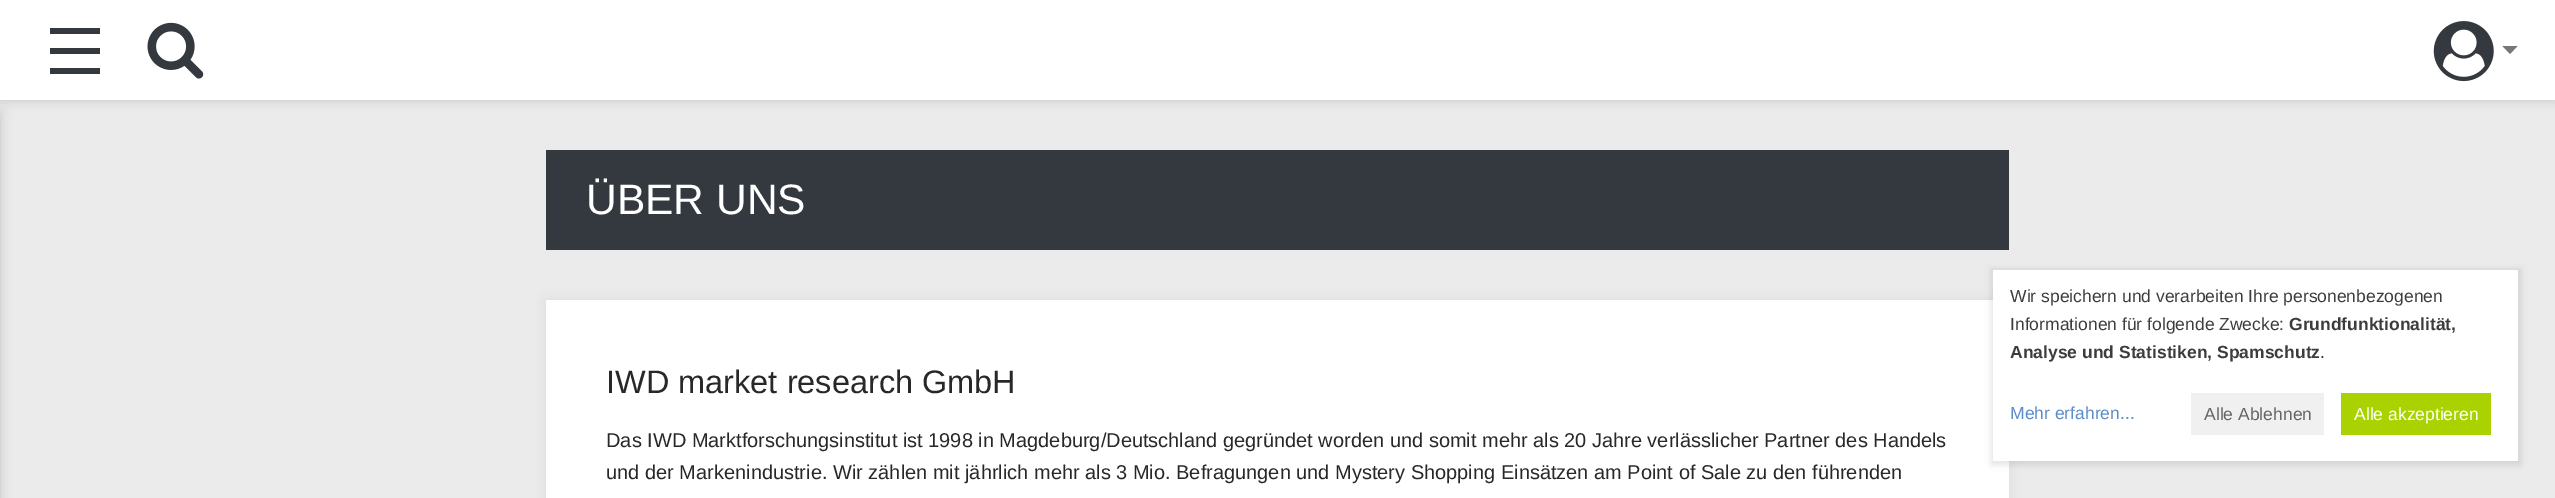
%!PS-Adobe-3.0
%%BoundingBox: 0 0 2555 498
%%LanguageLevel: 3
%%Pages: 1
%%EndComments
%%BeginProlog
/setink { dup -16 bitshift 255 div exch dup -8 bitshift 255 and 255 div exch 255 and 255 div setrgbcolor } def
/usefont { [ exch dup neg 0 0 3 -1 roll 0 0 ] selectfont } def
/setalpha { dup .setfillconstantalpha .setstrokeconstantalpha } def
/rrect { 5 dict begin { /r /h /w /y /x } { exch def } forall
  x r add y moveto x w add y 2 copy h add r arct x w add y h add x 1 index r arct
  x y h add x y r arct x y 2 copy exch w add exch r arct closepath end } def
/softshadow { 12 dict begin { /a /b /q /h /w /y /x } { exch def } forall gsave /was 0 def
  9 -2 -9 { dup b mul 4 div /e exch def 1 sub .425 mul 2.718 exch exp 1 add a .99 .min exch div /now exch def
    1 1 now sub 1 was sub div sub setalpha /was now def
    w h .min e 2 mul add 0 gt { x e sub y e sub w e 2 mul add h e 2 mul add
      q e add b .6 mul add w h .min 2 div e add .min 0 .max rrect fill } if } for grestore end } def
/drawimage { 5 dict begin { /h /w /y /x /name } { exch def } forall
  gsave x y translate w h scale
  w h 8 [w 0 0 h 0 0] name (r) file false 3 colorimage grestore end } def
%%EndProlog
%%BeginSetup
<< /PageSize [2555 498] /PageUsesTransparency true >> setpagedevice
%%EndSetup
%%Page: 1 1
0 .pushpdf14devicefilter
0 498 translate 1 -1 scale
4 setmiterlimit
16#EBEBEB setink
0 0 2555 498 rectfill
16#646464 setink
0 0 2555 100 0 6 0.3 softshadow
[
    [0 0 2555 100 16#FFFFFF]
    [50 48 50 6 16#34393F]
    [50 28 50 6 16#34393F]
    [50 68 50 6 16#34393F]
] { aload pop setink rectfill } forall
(img1.raw) 147 22 57 57 drawimage
(img2.raw) 2433 21 61 61 drawimage
16#787878 setink
2502.5 46 moveto 2517.5 46 lineto 2510 54 lineto closepath fill
16#646464 setink
-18 113 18 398 0 6 0.3 softshadow
16#34393F setink
546 150 1463 100 rectfill
/LiberationSans-Regular 42.5 usefont
16#FFFFFF setink
586 214 moveto (ÜBER UNS) show
16#646464 setink
546 300 1463 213 0 5 0.1 softshadow
16#FFFFFF setink
546 300 1463 198 rectfill
/LiberationSans-Regular 32.5 usefont
16#282828 setink
606 393 moveto (IWD market research GmbH) show
/LiberationSans-Regular 20 usefont
606 447 moveto (Das IWD Marktforschungsinstitut ist 1998 in Magdeburg/Deutschland gegründet worden und somit mehr als 20 Jahre verlässlicher Partner des Handels) show
606 479 moveto (und der Markenindustrie. Wir zählen mit jährlich mehr als 3 Mio. Befragungen und Mystery Shopping Einsätzen am Point of Sale zu den führenden) show
16#000000 setink
1991 269 530 196 0 3 0.1 softshadow
16#FFFFFF setink
1993 270 525 191 rectfill
/LiberationSans-Regular 17.5 usefont
16#3C3C3C setink
2010 302 moveto (Wir speichern und verarbeiten Ihre personenbezogenen) show
2010 330 moveto (Informationen für folgende Zwecke:) show
/LiberationSans-Bold 17.5 usefont
2289 330 moveto (Grundfunktionalität,) show
2010 358 moveto (Analyse und Statistiken, Spamschutz) show
/LiberationSans-Regular 17.5 usefont
2320 358 moveto (.) show
16#5A8CC8 setink
2010 419 moveto (Mehr erfahren...) show
16#F0F0F0 setink
2191 393 133 42 rectfill
16#646464 setink
2204 420 moveto (Alle Ablehnen) show
16#AAD200 setink
2341 393 150 42 rectfill
16#FFFFFF setink
2354 420 moveto (Alle akzeptieren) show
.poppdf14devicefilter showpage
%%EOF
